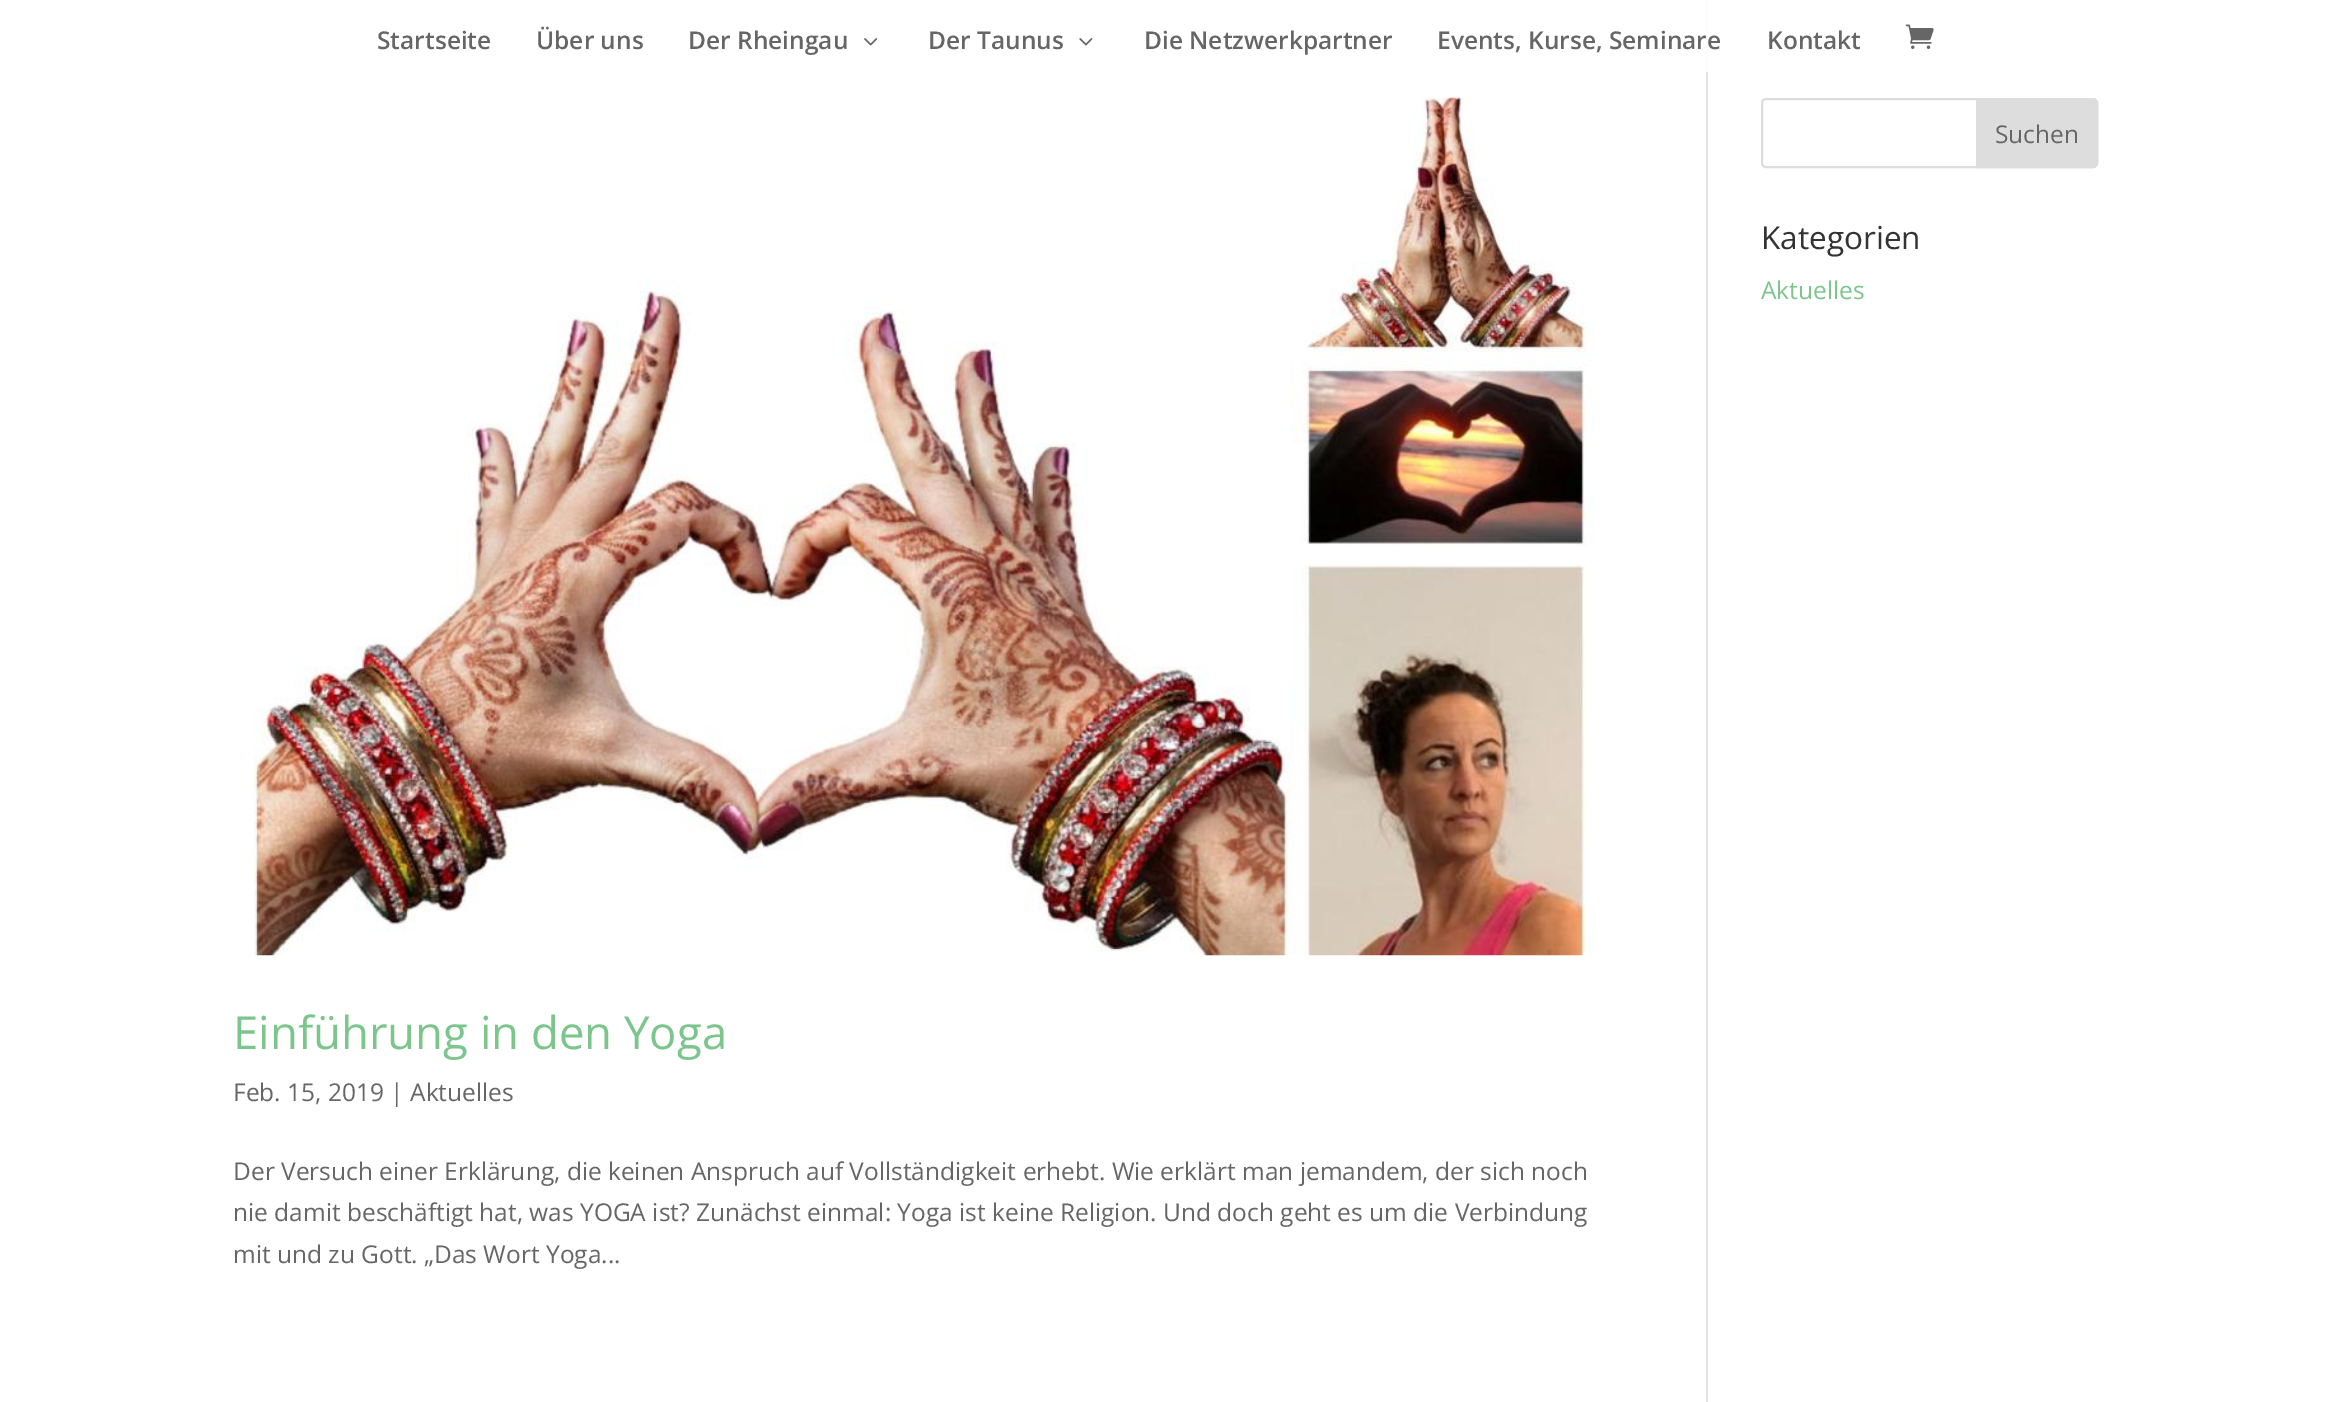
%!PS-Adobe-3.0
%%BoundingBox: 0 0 2330 1402
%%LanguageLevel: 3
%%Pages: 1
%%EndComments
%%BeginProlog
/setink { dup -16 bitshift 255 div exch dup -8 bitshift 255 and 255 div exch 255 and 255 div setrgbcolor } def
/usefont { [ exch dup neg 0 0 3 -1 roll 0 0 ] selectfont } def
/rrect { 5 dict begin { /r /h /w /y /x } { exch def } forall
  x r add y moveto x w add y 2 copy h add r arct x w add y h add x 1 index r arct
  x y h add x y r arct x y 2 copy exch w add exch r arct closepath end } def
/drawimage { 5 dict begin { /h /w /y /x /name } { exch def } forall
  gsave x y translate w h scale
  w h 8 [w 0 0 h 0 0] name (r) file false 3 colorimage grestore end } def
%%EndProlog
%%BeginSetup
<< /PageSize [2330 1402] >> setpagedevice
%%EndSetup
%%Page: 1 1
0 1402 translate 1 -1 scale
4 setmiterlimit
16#FFFFFF setink
0 0 2330 1402 rectfill
/OpenSans-SemiBold 24.5 usefont
16#666666 setink
[
    [(Startseite) 377 49]
    [(Über uns) 536 49]
    [(Der Rheingau) 688 49]
] { aload pop moveto show } forall
(img1.raw) 864 38 14 8 drawimage
928 49 moveto (Der Taunus) show
(img2.raw) 1079 38 14 8 drawimage
1144 49 moveto (Die Netzwerkpartner) show
16#FBFBFB setink
1706 0 2 72 rectfill
16#666666 setink
1437 49 moveto (Events, Kurse, Seminare) show
1767 49 moveto (Kontakt) show
(img3.raw) 1905 24 29 25 drawimage
16#E2E2E2 setink
1706 72 2 1330 rectfill
16#DDDDDD setink
2 setlinewidth
1762 99 335 68 4 rrect stroke
1977 99 moveto 2093 99 lineto 2095 99 2097 101 2097 103 curveto 2097 163 lineto 2097 165 2095 167 2093 167 curveto 1977 167 lineto closepath gsave fill grestore
stroke
/OpenSans-Regular 24.5 usefont
16#666666 setink
1995 143 moveto (Suchen) show
/OpenSans-Regular 31.5 usefont
16#333333 setink
1761 249 moveto (Kategorien) show
/OpenSans-Regular 24.5 usefont
16#7CC68D setink
1761 299 moveto (Aktuelles) show
(img4.raw) 253 97 1343 859 drawimage
/OpenSans-Regular 45.5 usefont
233 1049 moveto (Einführung in den Yoga) show
/OpenSans-Regular 24.5 usefont
16#666666 setink
[
    [(Feb. 15, 2019 | Aktuelles) 233 1101]
    [(Der Versuch einer Erklärung, die keinen Anspruch auf Vollständigkeit erhebt. Wie erklärt man jemandem, der sich noch) 233 1180]
    [(nie damit beschäftigt hat, was YOGA ist? Zunächst einmal: Yoga ist keine Religion. Und doch geht es um die Verbindung) 233 1221]
    [(mit und zu Gott. „Das Wort Yoga...) 233 1263]
] { aload pop moveto show } forall
showpage
%%EOF
